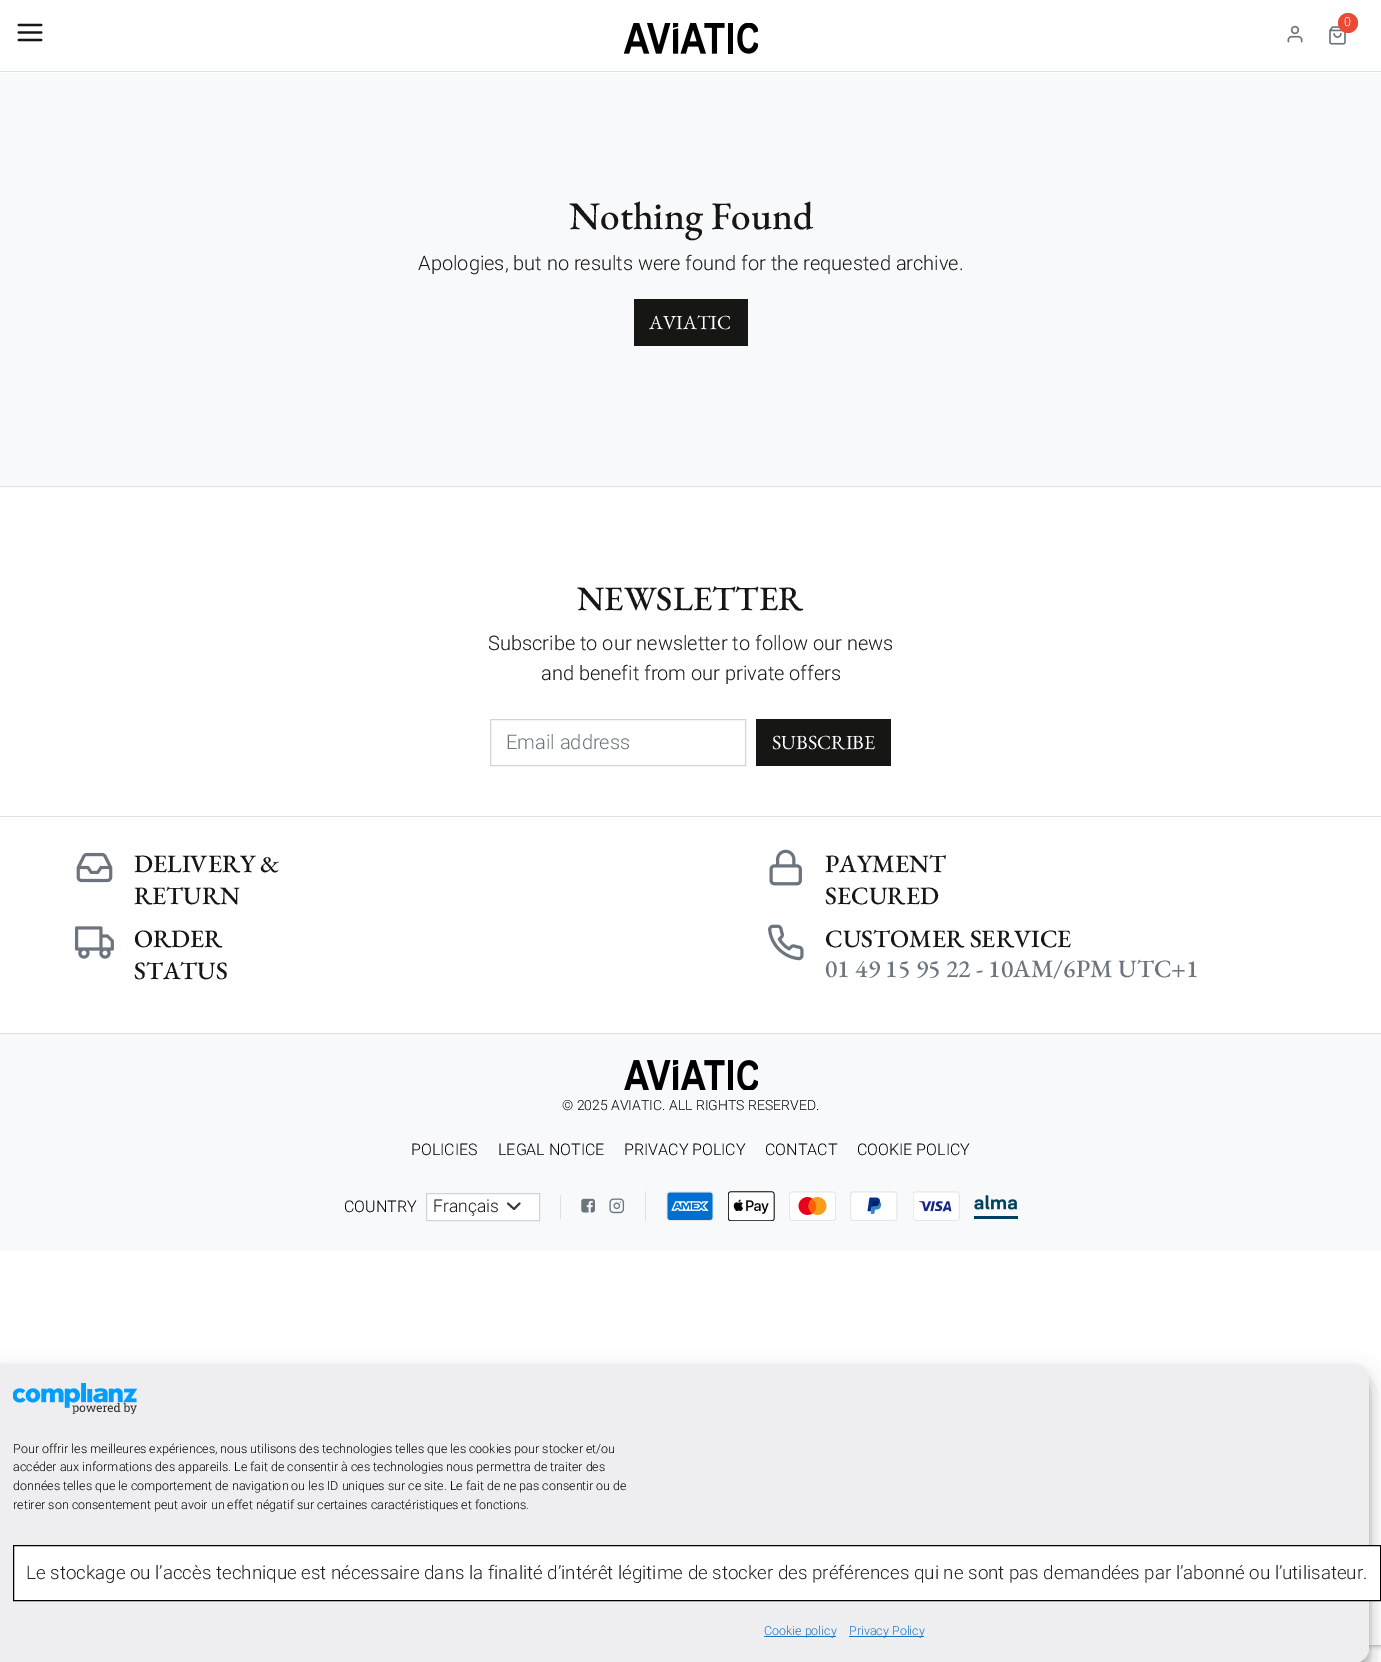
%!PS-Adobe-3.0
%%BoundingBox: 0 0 1381 1662
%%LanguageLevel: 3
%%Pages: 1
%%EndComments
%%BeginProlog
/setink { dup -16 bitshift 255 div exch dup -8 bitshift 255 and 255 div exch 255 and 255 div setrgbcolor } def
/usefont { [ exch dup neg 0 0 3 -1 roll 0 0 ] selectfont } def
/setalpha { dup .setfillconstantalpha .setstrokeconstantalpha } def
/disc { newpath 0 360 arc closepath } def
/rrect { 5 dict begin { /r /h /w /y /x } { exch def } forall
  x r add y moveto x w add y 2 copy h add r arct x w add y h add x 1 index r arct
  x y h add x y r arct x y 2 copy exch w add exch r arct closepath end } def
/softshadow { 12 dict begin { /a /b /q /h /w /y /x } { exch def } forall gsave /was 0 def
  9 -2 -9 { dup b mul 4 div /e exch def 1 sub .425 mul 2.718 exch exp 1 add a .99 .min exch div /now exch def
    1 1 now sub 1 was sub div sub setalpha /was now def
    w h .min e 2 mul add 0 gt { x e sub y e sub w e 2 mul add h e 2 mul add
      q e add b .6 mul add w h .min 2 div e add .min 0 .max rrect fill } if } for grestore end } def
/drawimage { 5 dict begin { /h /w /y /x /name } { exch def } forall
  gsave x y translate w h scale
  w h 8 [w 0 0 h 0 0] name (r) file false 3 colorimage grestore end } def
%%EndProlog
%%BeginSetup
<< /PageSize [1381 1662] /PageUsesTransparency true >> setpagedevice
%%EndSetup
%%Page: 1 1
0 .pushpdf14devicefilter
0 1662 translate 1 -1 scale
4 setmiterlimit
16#FFFFFF setink
0 0 1381 1662 rectfill
16#DEE2E6 setink
0 71 1381 1 rectfill
(img1.raw) 1329 26 17 19 drawimage
16#E94B35 setink
1348 23 10 disc fill
/Roboto-Light 12.5 usefont
16#FFFFFF setink
1344 26 moveto (0) show
(img2.raw) 1287 25 16 18 drawimage
(img3.raw) 17 23 26 19 drawimage
(img4.raw) 624 23 134 31 drawimage
16#F8F9FA setink
0 73 1381 415 rectfill
16#DEE2E6 setink
0 486 1381 1 rectfill
/EBGaramond-Medium 39 usefont
16#161615 setink
569 229 moveto (Nothing Found) show
/Roboto-Light 20 usefont
418 270 moveto (Apologies, but no results were found for the requested archive.) show
634 299 114 47 rectfill
/EBGaramond-Regular 20 usefont
16#FFFFFF setink
649 329 moveto (AVIATIC) show
/EBGaramond-Medium 34.25 usefont
16#161615 setink
577 610 moveto (NEWSLETTER) show
/Roboto-Light 20 usefont
488 650 moveto (Subscribe to our newsletter to follow our news) show
541 680 moveto (and benefit from our private offers) show
16#CED4DA setink
490.5 719.5 255 46 rectstroke
16#6C757D setink
506 749 moveto (Email address) show
16#161615 setink
756 719 135 47 rectfill
/EBGaramond-Regular 20 usefont
16#FFFFFF setink
772 749 moveto (SUBSCRIBE) show
16#DEE2E6 setink
0 816 1381 1 rectfill
(img5.raw) 76 852 37 31 drawimage
/EBGaramond-Medium 25 usefont
16#161615 setink
134 872 moveto (DELIVERY &) show
134 904 moveto (RETURN) show
(img6.raw) 769 849 33 37 drawimage
825 872 moveto (PAYMENT) show
825 904 moveto (SECURED) show
(img7.raw) 75 926 39 33 drawimage
134 947 moveto (ORDER) show
134 979 moveto (STATUS) show
(img8.raw) 768 924 36 37 drawimage
825 947 moveto (CUSTOMER SERVICE) show
16#6C757D setink
825 977 moveto (01 49 15 95 22 - 10AM/6PM UTC+1) show
16#F8F9FA setink
0 1034 1381 217 rectfill
16#DEE2E6 setink
0 1033 1381 1 rectfill
(img9.raw) 624 1060 134 30 drawimage
/Roboto-Light 14 usefont
16#000000 setink
562 1110 moveto (© 2025 AVIATIC. ALL RIGHTS RESERVED.) show
/Roboto-Light 16 usefont
[
    [(POLICIES) 411 1155]
    [(LEGAL NOTICE) 498 1155]
    [(PRIVACY POLICY) 624 1155]
    [(CONTACT) 765 1155]
    [(COOKIE POLICY) 857 1155]
    [(COUNTRY) 344 1212]
] { aload pop moveto show } forall
16#FFFFFF setink
427 1194 112 26 rectfill
16#343A40 setink
1.9 setlinewidth
1 setlinecap
1 setlinejoin
508 1203.5 moveto 514 1209 lineto 519.5 1203.5 lineto stroke
16#CED4DA setink
1 setlinewidth
0 setlinecap
0 setlinejoin
426.5 1193.5 113 27 rectstroke
/Roboto-Light 17.5 usefont
16#161615 setink
433 1212 moveto (Français) show
16#DEE2E6 setink
560 1195 1 24 rectfill
(img10.raw) 581 1198 14 15 drawimage
(img11.raw) 609 1198 16 16 drawimage
645 1191 1 30 rectfill
(img12.raw) 666 1191 48 30 drawimage
(img13.raw) 728 1191 47 30 drawimage
(img14.raw) 789 1191 47 30 drawimage
(img15.raw) 850 1191 48 30 drawimage
(img16.raw) 913 1191 47 30 drawimage
(img17.raw) 974 1195 44 24 drawimage
16#000000 setink
-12 1371 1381 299 15 4 0.23 softshadow
-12 1376 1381 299 15 12.5 0.19 softshadow
gsave
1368 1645 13 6 rectclip
16#808080 setink
1294 1570 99 75 2.5 3 1 softshadow
grestore
16#EEEEF0 setink
-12 1364 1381 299 15 rrect fill
(img18.raw) 13 1383 125 31 drawimage
/Roboto-Light 12.5 usefont
16#000000 setink
[
    [(Pour offrir les meilleures expériences, nous utilisons des technologies telles que les cookies pour stocker et/ou) 13 1453]
    [(accéder aux informations des appareils. Le fait de consentir à ces technologies nous permettra de traiter des) 13 1471]
    [(données telles que le comportement de navigation ou les ID uniques sur ce site. Le fait de ne pas consentir ou de) 13 1490]
    [(retirer son consentement peut avoir un effet négatif sur certaines caractéristiques et fonctions.) 13 1509]
] { aload pop moveto show } forall
16#FFFFFF setink
13.5 1545.5 moveto 1380.5 1545.5 lineto 1380.5 1600.5 lineto 13.5 1600.5 lineto closepath gsave fill grestore
16#000000 setink
stroke
/Roboto-Light 18.75 usefont
16#222222 setink
26 1579 moveto (Le stockage ou l’accès technique est nécessaire dans la finalité d’intérêt légitime de stocker des préférences qui ne sont pas demandées par l’abonné ou l’utilisateur.) show
16#1E73BE setink
764 1636 72 1 rectfill
/Roboto-Light 12.5 usefont
764 1635 moveto (Cookie policy) show
849 1636 75 1 rectfill
849 1635 moveto (Privacy Policy) show
.poppdf14devicefilter showpage
%%EOF
